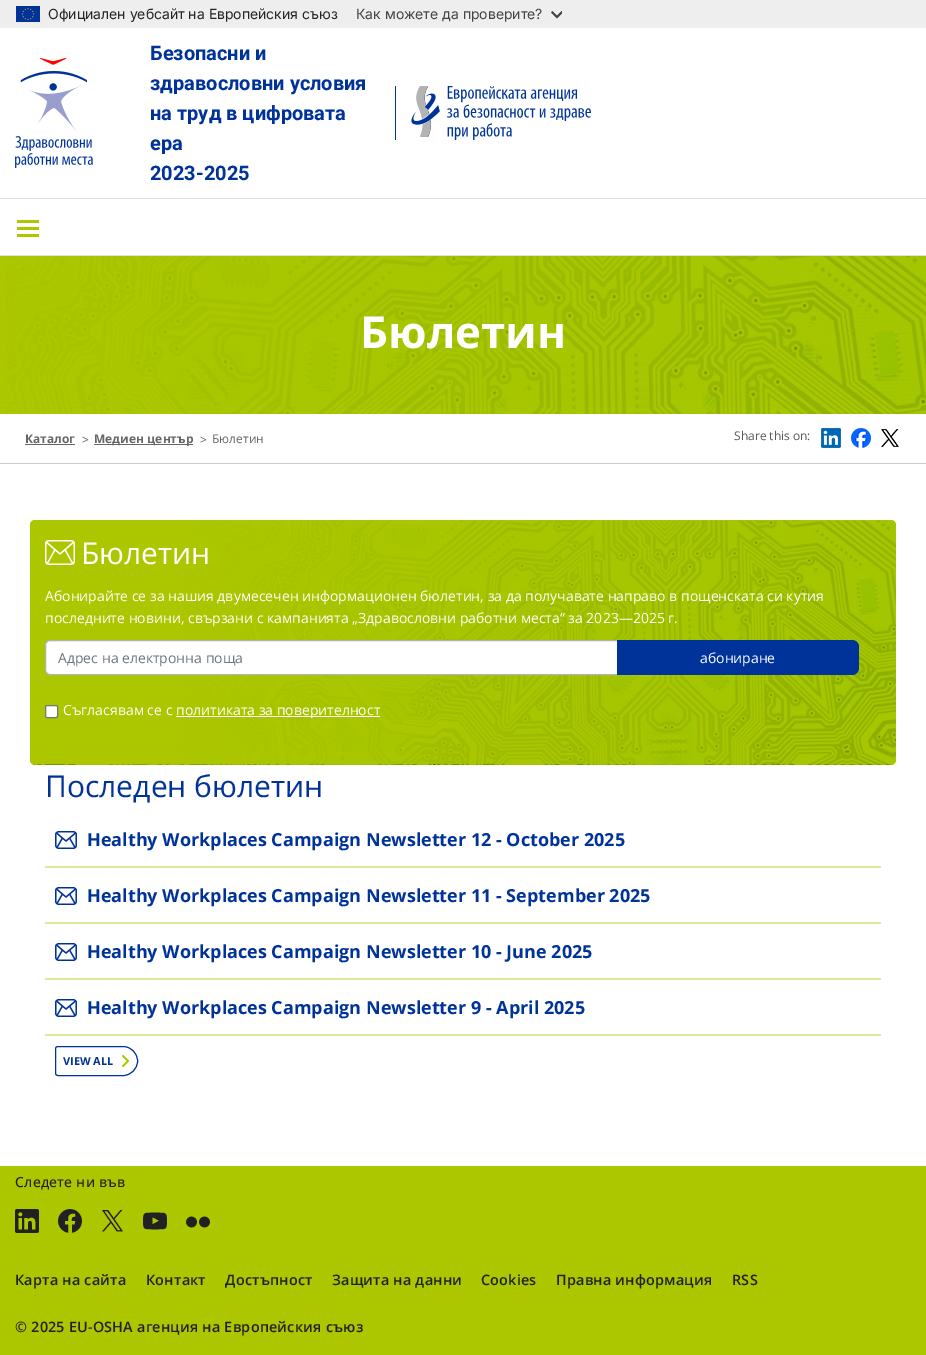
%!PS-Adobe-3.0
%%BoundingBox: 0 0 926 1355
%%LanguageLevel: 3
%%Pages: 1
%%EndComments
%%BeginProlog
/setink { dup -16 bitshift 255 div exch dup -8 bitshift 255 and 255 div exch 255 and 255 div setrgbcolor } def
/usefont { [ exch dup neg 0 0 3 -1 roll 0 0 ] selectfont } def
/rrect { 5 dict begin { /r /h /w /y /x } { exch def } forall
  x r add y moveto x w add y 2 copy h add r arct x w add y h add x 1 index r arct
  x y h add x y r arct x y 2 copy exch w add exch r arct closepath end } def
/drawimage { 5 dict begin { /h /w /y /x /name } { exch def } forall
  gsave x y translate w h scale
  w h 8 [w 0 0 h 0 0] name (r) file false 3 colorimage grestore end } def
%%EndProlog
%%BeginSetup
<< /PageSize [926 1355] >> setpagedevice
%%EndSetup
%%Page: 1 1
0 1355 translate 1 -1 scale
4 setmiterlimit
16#FFFFFF setink
0 0 926 1355 rectfill
16#EEEEEE setink
0 0 926 28 rectfill
(img1.raw) 16 6 24 16 drawimage
/Inter-Regular 14 usefont
16#212529 setink
48 19 moveto (Официален уебсайт на Европейския съюз) show
16#444444 setink
356 19 moveto (Как можете да проверите?) show
(img2.raw) 551 11 11 8 drawimage
(img3.raw) 15 58 78 110 drawimage
/Roboto-Bold 20 usefont
16#003399 setink
[
    [(Безопасни и) 150 60]
    [(здравословни условия) 150 90]
    [(на труд в цифровата) 150 120]
    [(ера) 150 150]
    [(2023-2025) 150 180]
] { aload pop moveto show } forall
395 86 1 54 rectfill
(img4.raw) 411 86 180 54 drawimage
16#E0E0E0 setink
0 198 926 1 rectfill
0 255 926 1 rectfill
16#ACC700 setink
17 220 22 3 1 rrect fill
17 227 22 3 1 rrect fill
17 234 22 3 1 rrect fill
0 256 6 158 rectfill
(img5.raw) 6 256 920 158 drawimage
/OpenSans-Bold 44 usefont
16#FFFFFF setink
360 348 moveto (Бюлетин) show
/OpenSans-Bold 12 usefont
16#666666 setink
25 443 moveto (Каталог) show
25 444 50 1 rectfill
/OpenSans-Regular 12 usefont
82 444 moveto (>) show
94 444 99 1 rectfill
/OpenSans-Bold 12 usefont
94 443 moveto (Медиен център) show
/OpenSans-Regular 12 usefont
200 444 moveto (>) show
212 443 moveto (Бюлетин) show
16#59595A setink
734 440 moveto (Share this on:) show
(img6.raw) 821 428 20 20 drawimage
(img7.raw) 851 428 20 20 drawimage
(img8.raw) 881 429 18 18 drawimage
16#CCCCCC setink
0 463 926 1 rectfill
(img9.raw) 30 520 866 245 drawimage
(img10.raw) 45 540 30 25 drawimage
/OpenSans-Regular 30 usefont
16#FFFFFF setink
81 564 moveto (Бюлетин) show
/OpenSans-Regular 14 usefont
45 601 moveto (Абонирайте се за нашия двумесечен информационен бюлетин, за да получавате направо в пощенската си кутия) show
45 623 moveto (последните новини, свързани с кампанията „Здравословни работни места“ за 2023—2025 г.) show
45.5 640.5 618 34 4.5 rrect gsave fill grestore
16#B0B2B3 setink
stroke
16#6C757D setink
58 663 moveto (Адрес на електронна поща) show
16#003399 setink
617 640 moveto 852 640 lineto 856 640 859 643 859 647 curveto 859 668 lineto 859 672 856 675 852 675 curveto 617 675 lineto closepath fill
16#FFFFFF setink
700 663 moveto (абониране) show
45.5 705.5 12 12 1.5 rrect gsave fill grestore
16#767676 setink
stroke
16#FFFFFF setink
63 715 moveto (Съгласявам се с) show
176 716 204 1 rectfill
176 715 moveto (политиката за поверителност) show
/OpenSans-Regular 30 usefont
16#003399 setink
45 797 moveto (Последен бюлетин) show
16#DAEA96 setink
45 866 836 2 rectfill
(img11.raw) 55 831 22 18 drawimage
/OpenSans-Bold 18 usefont
16#003399 setink
87 846 moveto (Healthy Workplaces Campaign Newsletter 12 - October 2025) show
16#DAEA96 setink
45 922 836 2 rectfill
(img11.raw) 55 887 22 18 drawimage
16#003399 setink
87 902 moveto (Healthy Workplaces Campaign Newsletter 11 - September 2025) show
16#DAEA96 setink
45 978 836 2 rectfill
(img11.raw) 55 943 22 18 drawimage
16#003399 setink
87 958 moveto (Healthy Workplaces Campaign Newsletter 10 - June 2025) show
16#DAEA96 setink
45 1034 836 2 rectfill
(img11.raw) 55 999 22 18 drawimage
16#003399 setink
87 1014 moveto (Healthy Workplaces Campaign Newsletter 9 - April 2025) show
(img12.raw) 122 1055 7 12 drawimage
58 1046.5 moveto 123 1046.5 lineto 131 1046.5 137.5 1053 137.5 1061 curveto 137.5 1069 131 1075.5 123 1075.5 curveto 58 1075.5 lineto 56.5 1075.5 55.5 1074.5 55.5 1073 curveto 55.5 1049 lineto 55.5 1047.5 56.5 1046.5 58 1046.5 curveto closepath stroke
/OpenSans-Bold 11 usefont
63 1065 moveto (VIEW ALL) show
16#ACC700 setink
0 1166 926 189 rectfill
/OpenSans-Medium 14 usefont
16#212121 setink
15 1187 moveto 0.2 0 (Следете ни във) ashow
(img13.raw) 15 1209 24 24 drawimage
(img14.raw) 58 1209 24 24 drawimage
(img15.raw) 102 1210 21 22 drawimage
(img16.raw) 143 1212 24 18 drawimage
(img17.raw) 186 1216 24 12 drawimage
/OpenSans-SemiBold 14.4 usefont
15 1285 moveto 0.2 0 (Карта на сайта) ashow
146 1285 moveto 0.2 0 (Контакт) ashow
225 1285 moveto 0.2 0 (Достъпност) ashow
332 1285 moveto 0.2 0 (Защита на данни) ashow
481 1285 moveto 0.2 0 (Cookies) ashow
556 1285 moveto 0.2 0 (Правна информация) ashow
732 1285 moveto 0.2 0 (RSS) ashow
15 1332 moveto 0.2 0 (© 2025 EU-OSHA агенция на Европейския съюз) ashow
showpage
%%EOF
